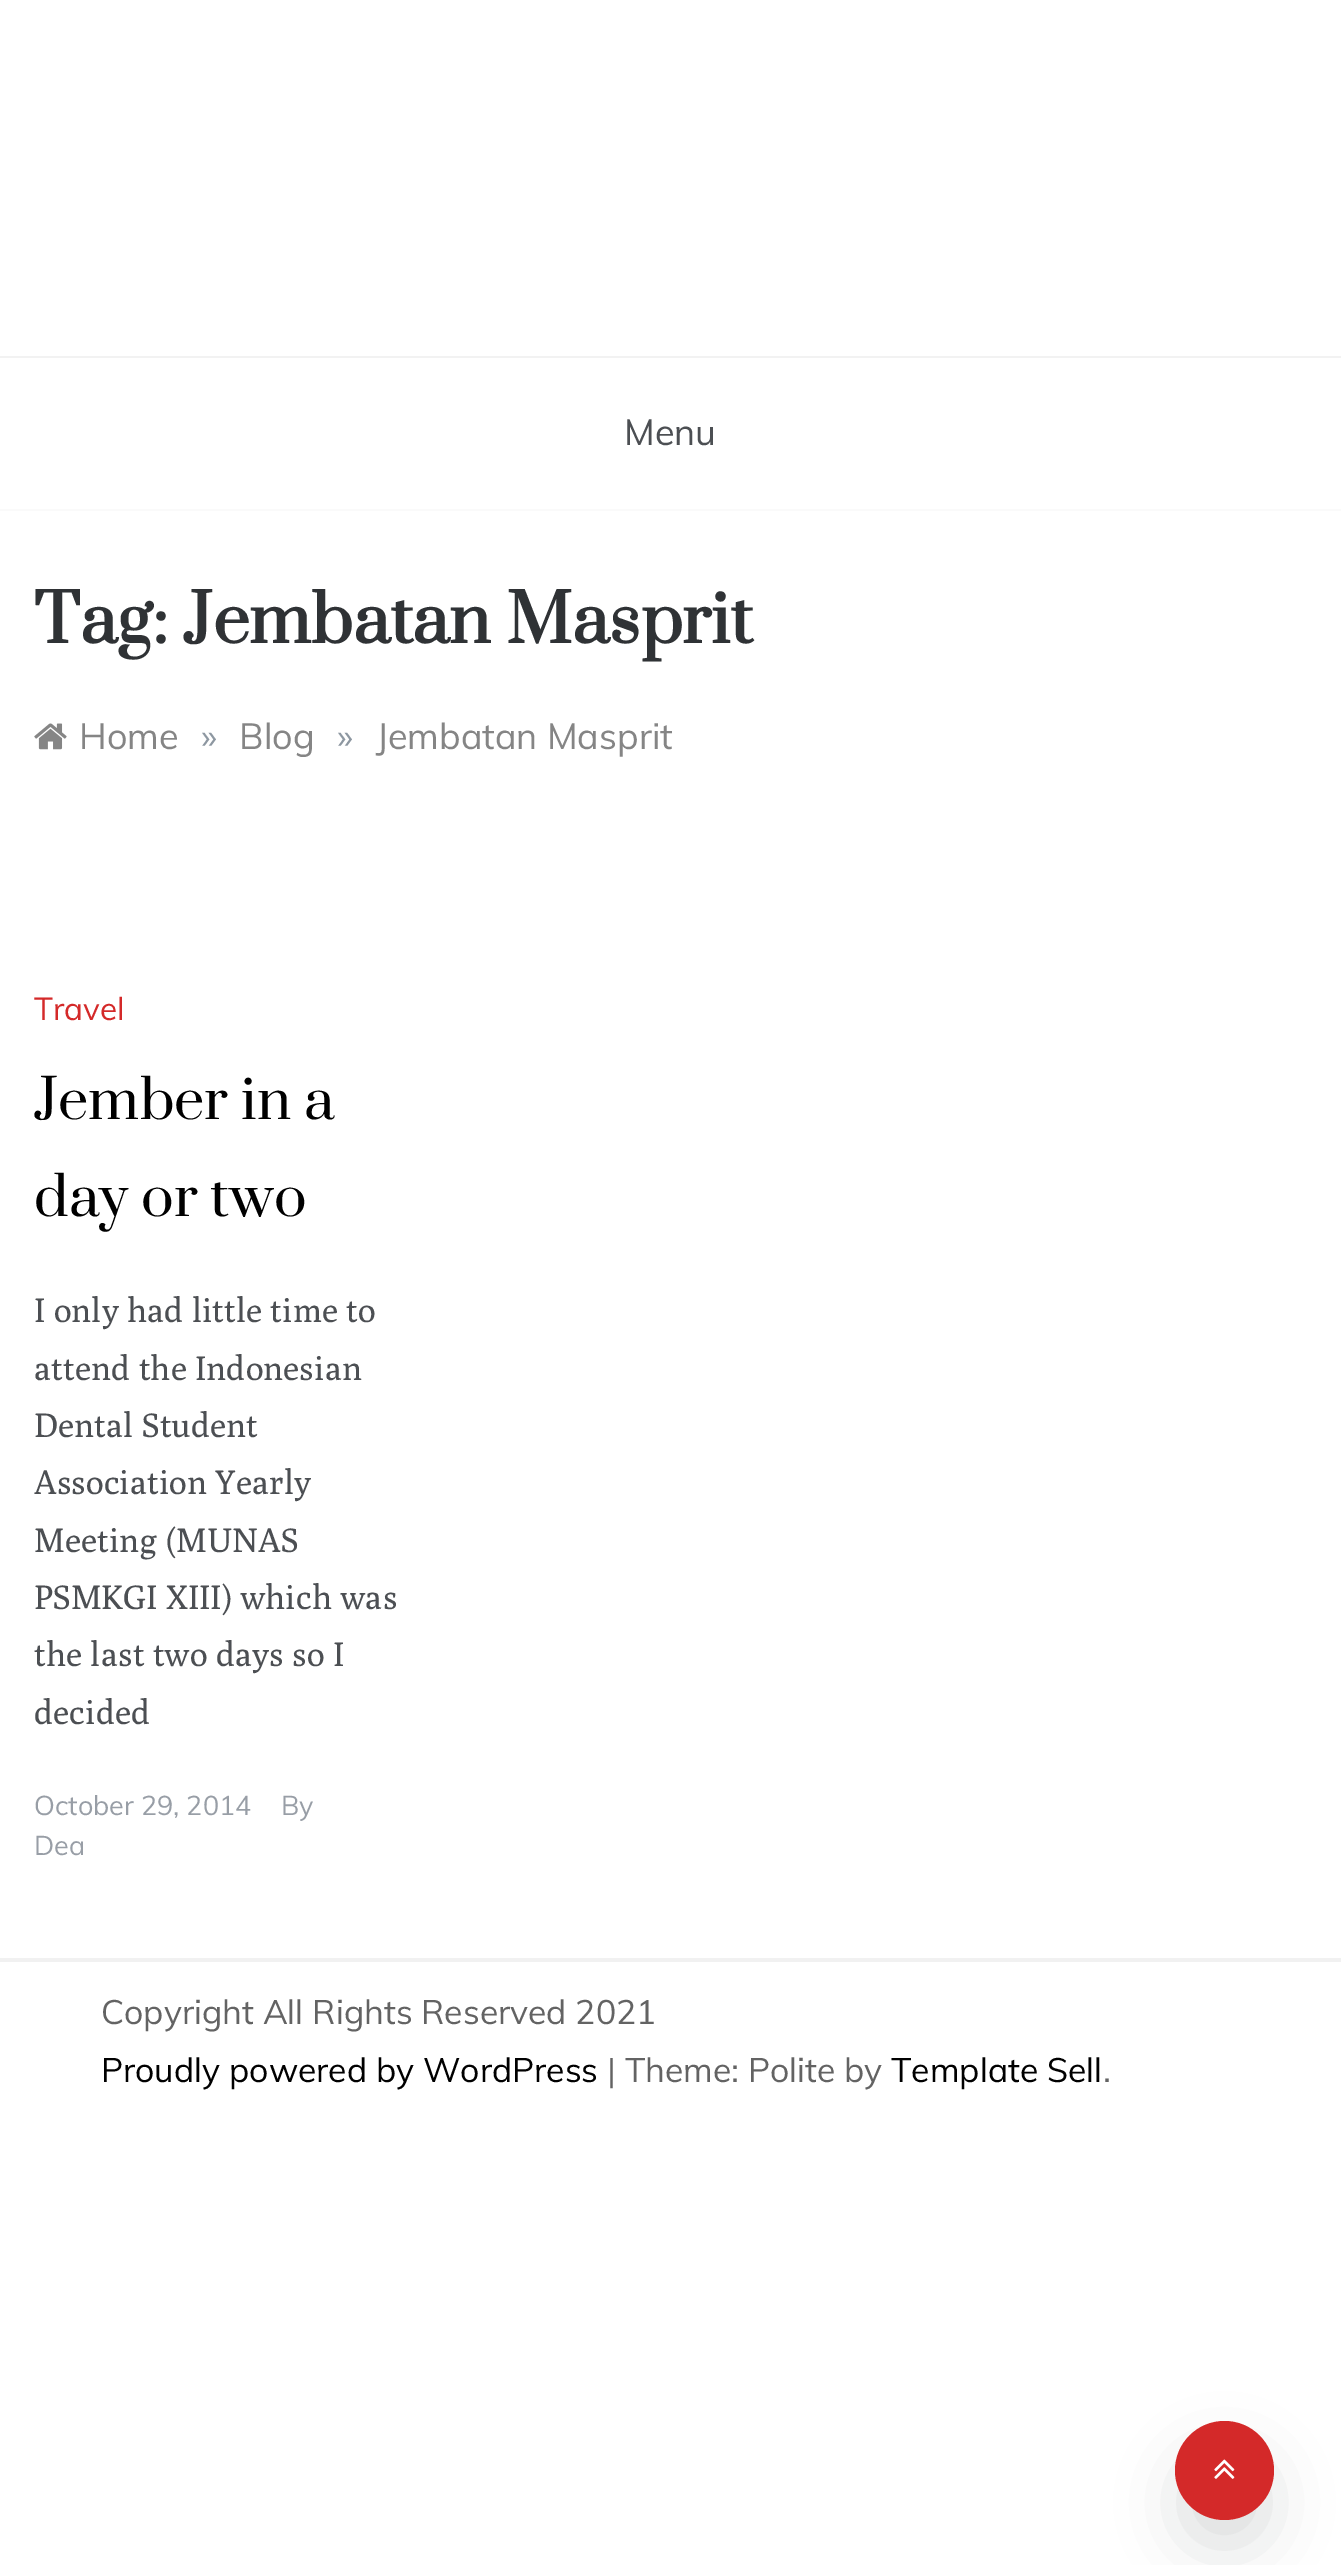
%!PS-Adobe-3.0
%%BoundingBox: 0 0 1341 2565
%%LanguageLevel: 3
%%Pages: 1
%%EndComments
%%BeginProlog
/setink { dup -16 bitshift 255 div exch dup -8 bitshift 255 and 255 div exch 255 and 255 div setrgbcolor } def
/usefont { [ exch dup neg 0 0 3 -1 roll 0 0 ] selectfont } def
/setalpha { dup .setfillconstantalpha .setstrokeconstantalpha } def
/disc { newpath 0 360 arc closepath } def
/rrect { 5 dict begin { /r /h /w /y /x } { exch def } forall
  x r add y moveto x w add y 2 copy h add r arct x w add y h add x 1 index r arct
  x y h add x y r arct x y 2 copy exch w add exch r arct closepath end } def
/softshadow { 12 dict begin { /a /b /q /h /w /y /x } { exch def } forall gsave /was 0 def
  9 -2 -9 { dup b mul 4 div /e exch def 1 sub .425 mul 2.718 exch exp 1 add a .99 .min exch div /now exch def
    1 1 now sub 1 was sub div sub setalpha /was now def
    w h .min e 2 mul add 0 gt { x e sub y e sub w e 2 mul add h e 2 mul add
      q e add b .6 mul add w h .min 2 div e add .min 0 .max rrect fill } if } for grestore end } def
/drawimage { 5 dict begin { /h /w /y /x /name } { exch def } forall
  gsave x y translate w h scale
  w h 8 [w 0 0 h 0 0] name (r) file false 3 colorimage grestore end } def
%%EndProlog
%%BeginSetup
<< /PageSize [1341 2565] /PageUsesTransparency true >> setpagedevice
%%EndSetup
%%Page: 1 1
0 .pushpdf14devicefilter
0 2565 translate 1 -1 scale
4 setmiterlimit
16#FFFFFF setink
0 0 1341 2565 rectfill
16#FAFAFA setink
0 509 1341 2 rectfill
16#F2F2F2 setink
0 356 1341 2 rectfill
/Muli-Regular 36 usefont
16#4C4F53 setink
624 445 moveto (Menu) show
/Prata-Bold 65.25 usefont
16#2F3235 setink
34 643 moveto (Tag: Jembatan Masprit) show
(img1.raw) 34 723 33 27 drawimage
/Muli-Regular 36 usefont
16#858585 setink
79 749 moveto (Home) show
16#8D97A1 setink
201 749 moveto (») show
16#858585 setink
239 749 moveto (Blog) show
16#8D97A1 setink
337 749 moveto (») show
16#858585 setink
376 749 moveto (Jembatan Masprit) show
/Muli-Regular 31.5 usefont
16#D42929 setink
34 1020 moveto (Travel) show
/Prata-Regular 54 usefont
16#000000 setink
34 1119 moveto (Jember in a) show
34 1216 moveto (day or two) show
/Poly-Regular 33.75 usefont
16#4C4F53 setink
[
    [(I only had little time to) 34 1322]
    [(attend the Indonesian) 34 1380]
    [(Dental Student) 34 1437]
    [(Association Yearly) 34 1494]
    [(Meeting \(MUNAS) 34 1552]
    [(PSMKGI XIII\) which was) 34 1609]
    [(the last two days so I) 34 1666]
    [(decided) 34 1724]
] { aload pop moveto show } forall
/Muli-Regular 27 usefont
16#989EA6 setink
[
    [(October 29, 2014) 34 1815]
    [(By) 281 1815]
    [(Dea) 34 1855]
] { aload pop moveto show } forall
16#F1F1F1 setink
0 1958 1341 4 rectfill
/Muli-Regular 33.75 usefont
16#636363 setink
101 2024 moveto (Copyright All Rights Reserved 2021) show
16#000000 setink
101 2082 moveto (Proudly powered by WordPress) show
16#636363 setink
607 2082 moveto (| Theme: Polite by) show
16#000000 setink
891 2082 moveto (Template Sell) show
16#636363 setink
1103 2082 moveto (.) show
16#0E1114 setink
1184 2462 81 81 40.5 31.5 0.15 softshadow
16#D42929 setink
1224.5 2470.5 49.5 disc fill
(img2.raw) 1214 2459 21 20 drawimage
.poppdf14devicefilter showpage
%%EOF
